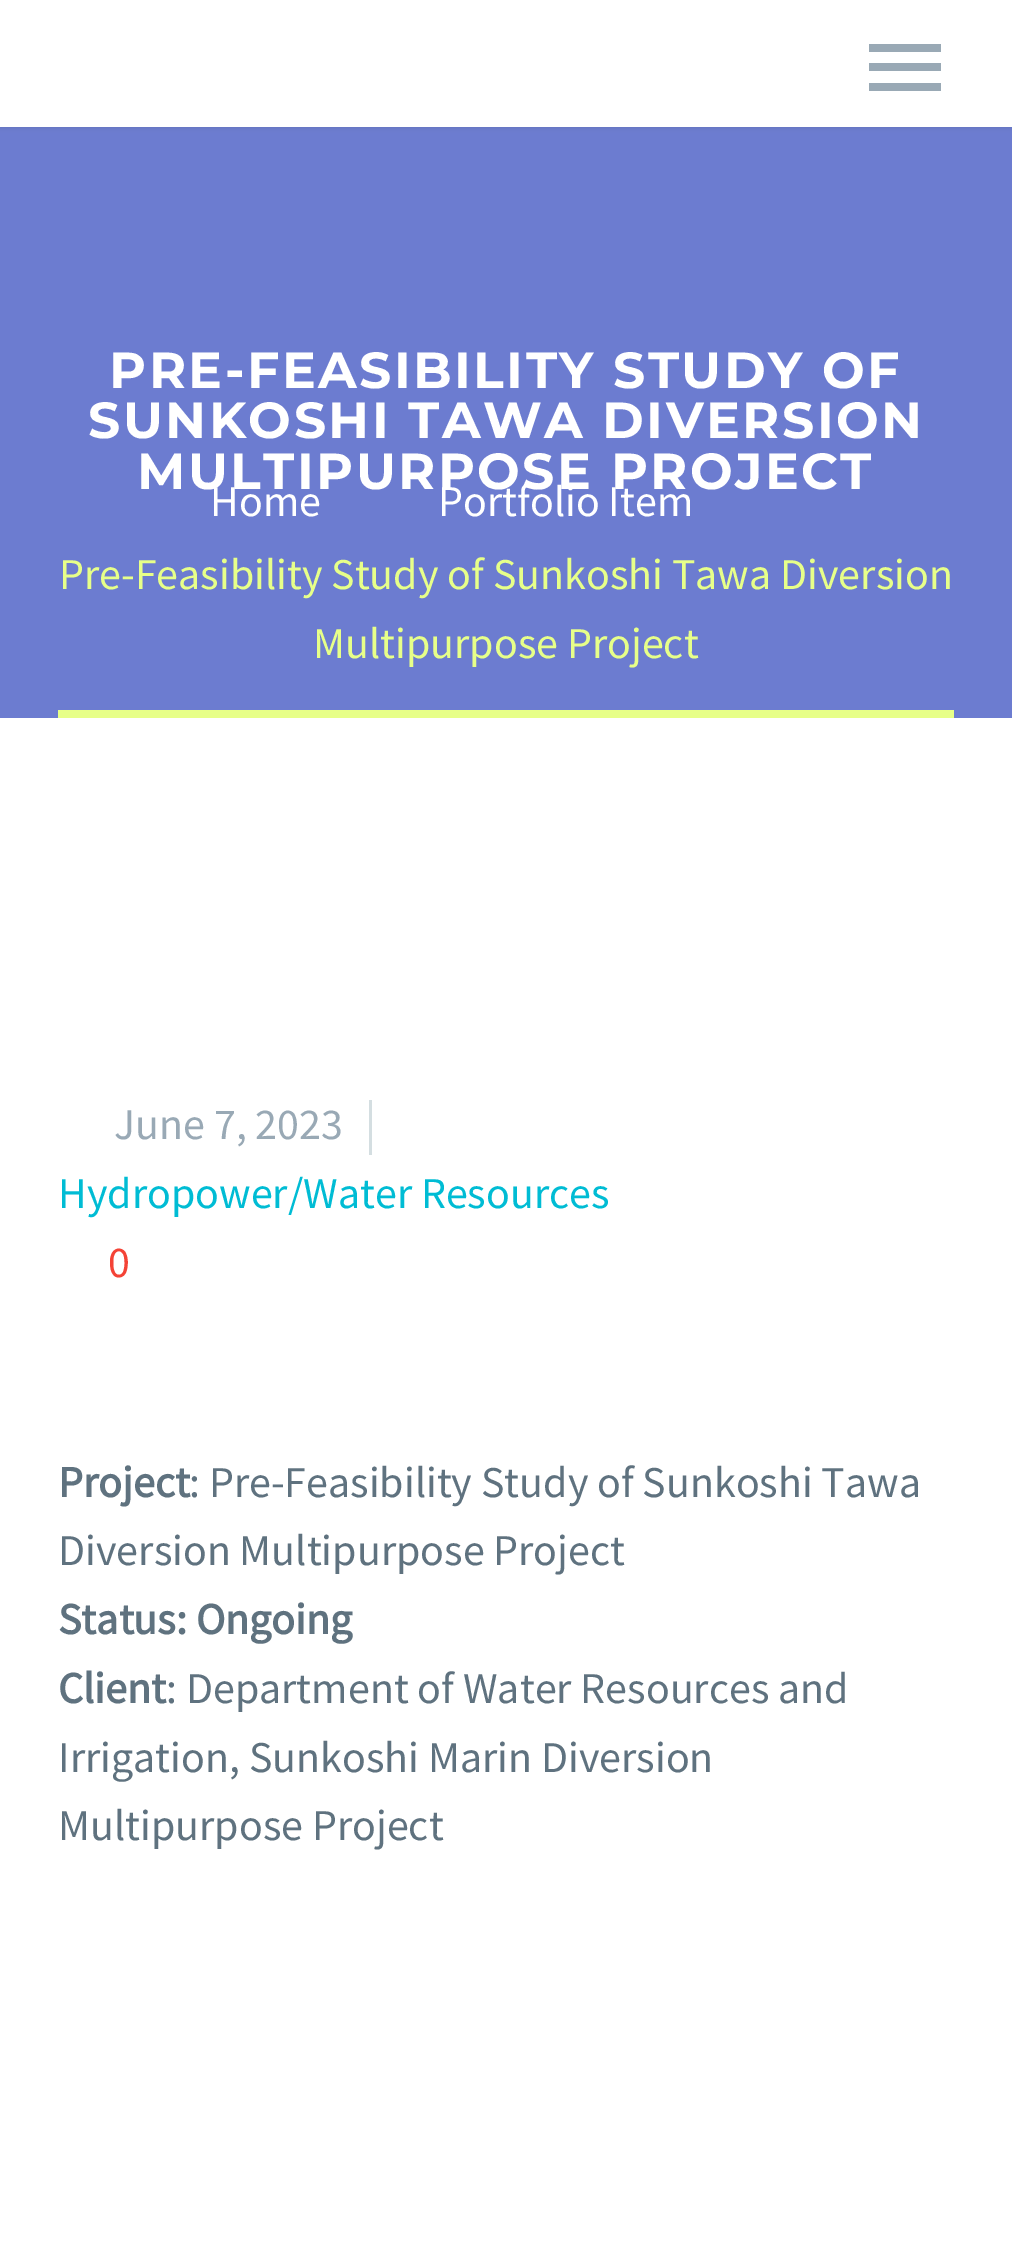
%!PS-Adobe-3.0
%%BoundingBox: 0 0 1012 2266
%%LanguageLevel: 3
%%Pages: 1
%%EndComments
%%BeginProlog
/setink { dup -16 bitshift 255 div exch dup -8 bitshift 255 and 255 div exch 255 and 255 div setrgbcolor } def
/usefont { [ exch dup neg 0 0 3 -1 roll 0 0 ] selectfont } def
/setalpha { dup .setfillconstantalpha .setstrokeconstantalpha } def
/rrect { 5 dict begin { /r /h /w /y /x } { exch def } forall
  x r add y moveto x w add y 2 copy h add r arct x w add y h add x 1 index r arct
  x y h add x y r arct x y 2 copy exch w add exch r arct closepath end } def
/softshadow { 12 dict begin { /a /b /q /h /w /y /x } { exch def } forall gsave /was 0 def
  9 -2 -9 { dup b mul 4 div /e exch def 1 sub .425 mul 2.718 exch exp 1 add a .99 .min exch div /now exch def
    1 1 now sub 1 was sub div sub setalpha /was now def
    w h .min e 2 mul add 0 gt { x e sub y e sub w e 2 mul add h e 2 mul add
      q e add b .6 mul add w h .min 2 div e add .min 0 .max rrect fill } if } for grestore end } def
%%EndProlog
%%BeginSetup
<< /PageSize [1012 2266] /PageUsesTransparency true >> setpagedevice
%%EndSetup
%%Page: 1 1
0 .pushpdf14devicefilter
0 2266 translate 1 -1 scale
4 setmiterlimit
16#FFFFFF setink
0 0 1012 2266 rectfill
16#6C7CD0 setink
0 127 1012 591 rectfill
16#384554 setink
0 0 1012 127 0 3 0.2 softshadow
[
    [0 0 1012 127 16#FFFFFF]
    [869 44 72 8 16#99A9B5]
    [869 63 72 8 16#99A9B5]
    [869 83 72 8 16#99A9B5]
] { aload pop setink rectfill } forall
/Montserrat-Bold 50.6 usefont
16#FFFFFF setink
109 388 moveto 2.5 0 (PRE-FEASIBILITY STUDY OF) ashow
88 438 moveto 2.5 0 (SUNKOSHI TAWA DIVERSION) ashow
137 489 moveto 2.5 0 (MULTIPURPOSE PROJECT) ashow
/SourceSansPro-Regular 44 usefont
210 516 moveto (Home) show
438 516 moveto (Portfolio Item) show
16#E7FF89 setink
58 710 896 8 rectfill
59 589 moveto (Pre-Feasibility Study of Sunkoshi Tawa Diversion) show
313 658 moveto (Multipurpose Project) show
16#99A9B5 setink
114 1139 moveto (June 7, 2023) show
16#D4DEE1 setink
369 1100 3 55 rectfill
16#00BCD4 setink
58 1208 moveto (Hydropower/Water Resources) show
16#F44336 setink
108 1277 moveto (0) show
/SourceSansPro-Bold 44 usefont
16#5F727F setink
58 1497 moveto (Project) show
/SourceSansPro-Regular 44 usefont
189 1497 moveto (: Pre-Feasibility Study of Sunkoshi Tawa) show
58 1565 moveto (Diversion Multipurpose Project) show
/SourceSansPro-Bold 44 usefont
58 1634 moveto (Status: Ongoing) show
58 1703 moveto (Client) show
/SourceSansPro-Regular 44 usefont
[
    [(: Department of Water Resources and) 166 1703]
    [(Irrigation, Sunkoshi Marin Diversion) 58 1772]
    [(Multipurpose Project) 58 1840]
] { aload pop moveto show } forall
.poppdf14devicefilter showpage
%%EOF
